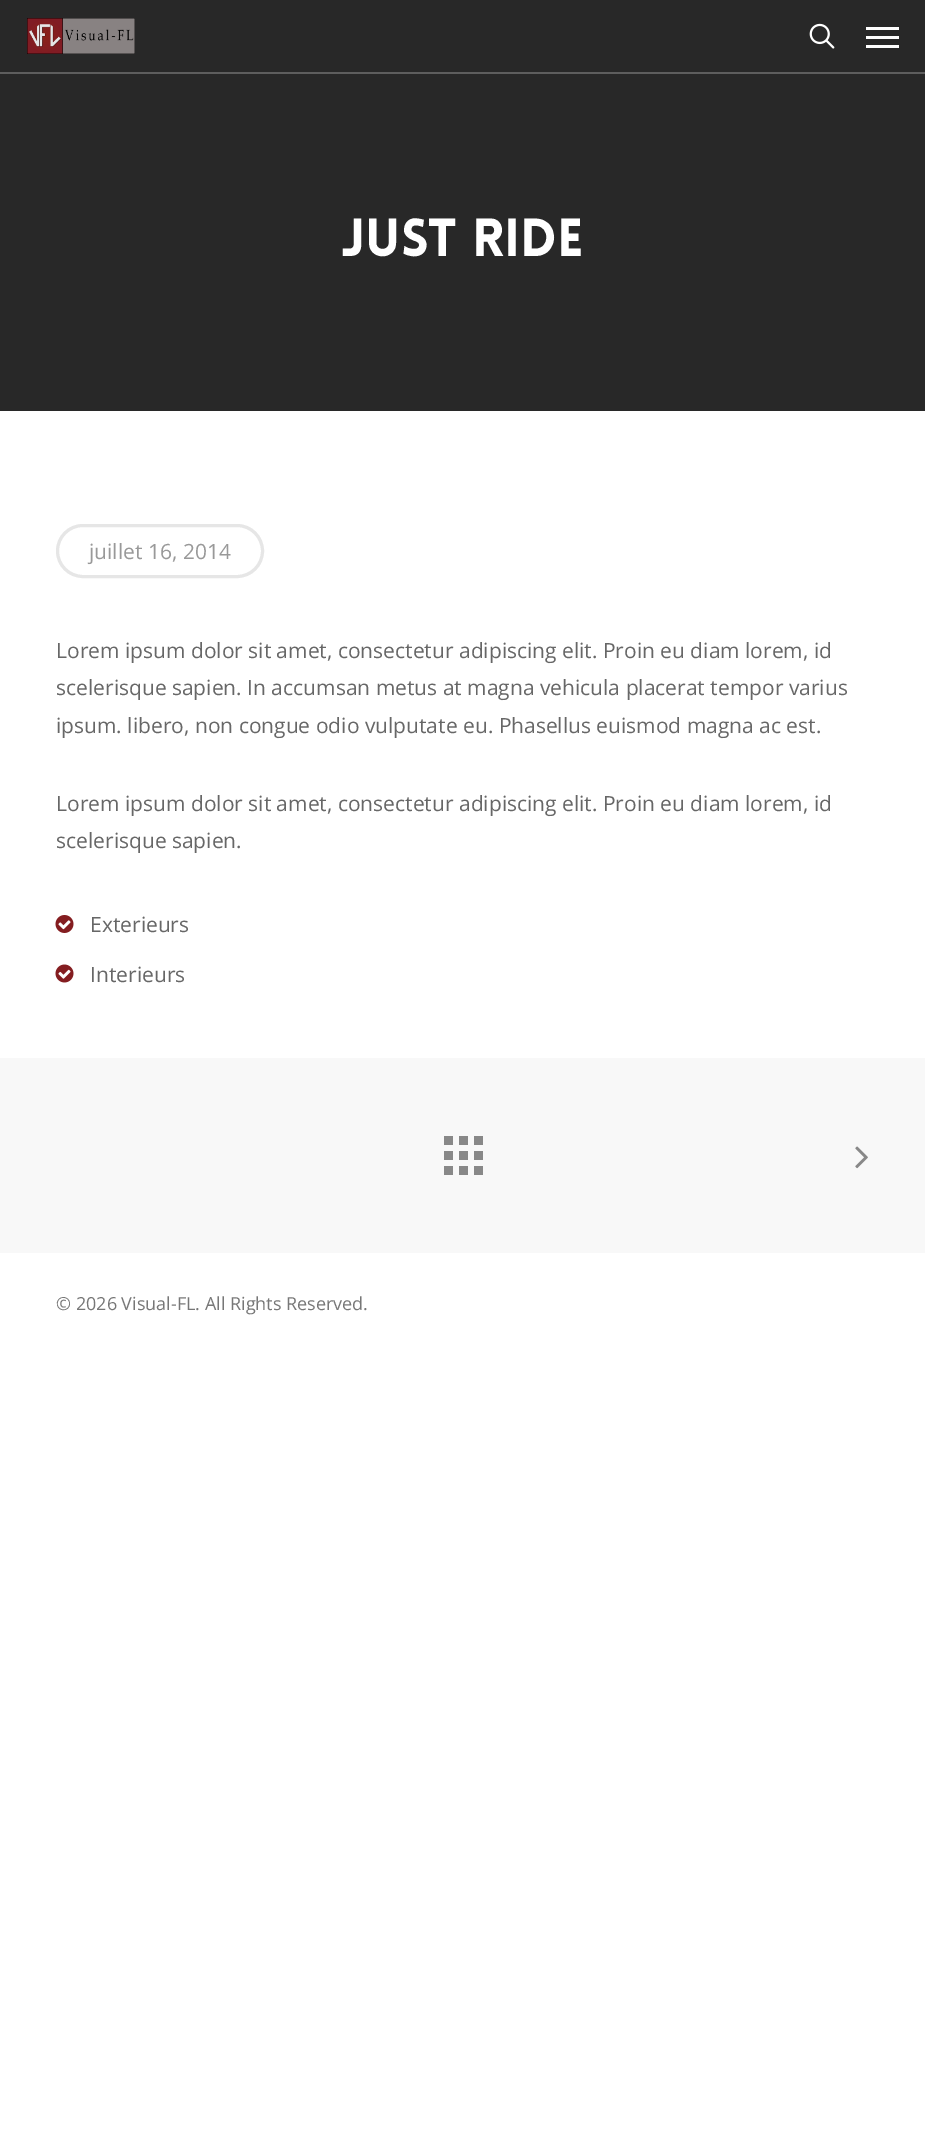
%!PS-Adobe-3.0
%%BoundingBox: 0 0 925 2143
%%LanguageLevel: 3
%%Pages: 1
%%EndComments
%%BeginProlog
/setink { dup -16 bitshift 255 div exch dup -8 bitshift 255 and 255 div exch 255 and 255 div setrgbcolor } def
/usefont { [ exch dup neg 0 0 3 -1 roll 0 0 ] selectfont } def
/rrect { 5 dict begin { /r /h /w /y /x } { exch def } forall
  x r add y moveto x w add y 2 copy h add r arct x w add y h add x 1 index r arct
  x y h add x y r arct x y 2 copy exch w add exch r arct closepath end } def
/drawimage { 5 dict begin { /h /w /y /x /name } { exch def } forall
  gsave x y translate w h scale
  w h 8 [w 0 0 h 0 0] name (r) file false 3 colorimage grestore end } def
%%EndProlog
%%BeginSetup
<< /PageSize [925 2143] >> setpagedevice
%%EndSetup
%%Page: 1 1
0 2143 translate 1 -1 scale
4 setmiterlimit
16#FFFFFF setink
0 0 925 2143 rectfill
16#282828 setink
0 0 925 411 rectfill
16#5E5E5E setink
0 72 925 2 rectfill
(img1.raw) 27 18 108 36 drawimage
(img2.raw) 809 23 26 26 drawimage
[
    [866 27 33 3 16#FFFFFF]
    [866 45 33 3 16#FFFFFF]
    [866 36 33 3 16#FFFFFF]
] { aload pop setink rectfill } forall
/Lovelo-Black 52.5 usefont
341 256 moveto (JUST RIDE) show
16#E6E6E6 setink
3 setlinewidth
57.5 525.5 205 51 25.5 rrect stroke
/OpenSans-Regular 21 usefont
16#999999 setink
89 559 moveto (juillet 16, 2014) show
16#676767 setink
[
    [(Lorem ipsum dolor sit amet, consectetur adipiscing elit. Proin eu diam lorem, id) 56 658]
    [(scelerisque sapien. In accumsan metus at magna vehicula placerat tempor varius) 56 695]
    [(ipsum. libero, non congue odio vulputate eu. Phasellus euismod magna ac est.) 56 733]
    [(Lorem ipsum dolor sit amet, consectetur adipiscing elit. Proin eu diam lorem, id) 56 811]
    [(scelerisque sapien.) 56 848]
] { aload pop moveto show } forall
(img3.raw) 55 915 19 18 drawimage
90 932 moveto (Exterieurs) show
(img4.raw) 55 964 19 19 drawimage
90 982 moveto (Interieurs) show
[
    [0 1058 925 195 16#F8F8F8]
    [474 1166 9 9 16#888888]
    [459 1166 9 9 16#888888]
    [444 1136 9 9 16#888888]
    [459 1136 9 9 16#888888]
    [474 1136 9 9 16#888888]
    [474 1151 9 9 16#888888]
    [444 1166 9 9 16#888888]
    [444 1151 9 9 16#888888]
    [459 1151 9 9 16#888888]
] { aload pop setink rectfill } forall
(img5.raw) 855 1146 13 23 drawimage
/OpenSans-Regular 18 usefont
16#777777 setink
56 1310 moveto (© 2026 Visual-FL. All Rights Reserved.) show
showpage
%%EOF
